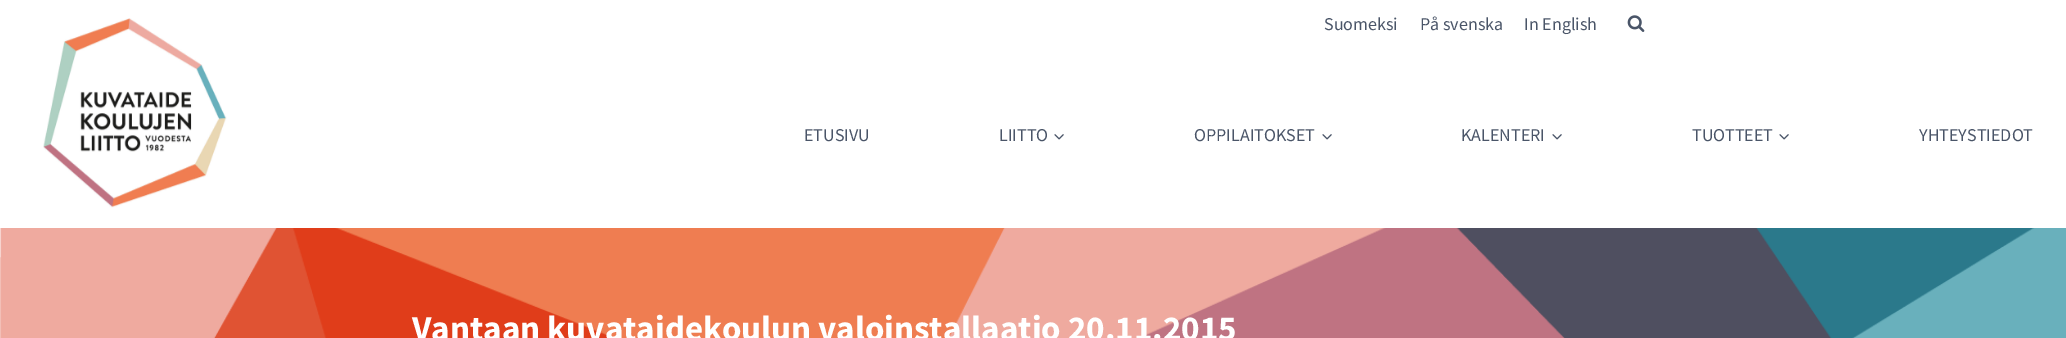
%!PS-Adobe-3.0
%%BoundingBox: 0 0 2066 338
%%LanguageLevel: 3
%%Pages: 1
%%EndComments
%%BeginProlog
/setink { dup -16 bitshift 255 div exch dup -8 bitshift 255 and 255 div exch 255 and 255 div setrgbcolor } def
/usefont { [ exch dup neg 0 0 3 -1 roll 0 0 ] selectfont } def
/drawimage { 5 dict begin { /h /w /y /x /name } { exch def } forall
  gsave x y translate w h scale
  w h 8 [w 0 0 h 0 0] name (r) file false 3 colorimage grestore end } def
%%EndProlog
%%BeginSetup
<< /PageSize [2066 338] >> setpagedevice
%%EndSetup
%%Page: 1 1
0 338 translate 1 -1 scale
4 setmiterlimit
16#FFFFFF setink
0 0 2066 338 rectfill
/SourceSansPro-Regular 18 usefont
16#4A5568 setink
[
    [(Suomeksi) 1324 30]
    [(På svenska) 1420 30]
    [(In English) 1524 30]
] { aload pop moveto show } forall
(img1.raw) 1627 15 18 17 drawimage
(img2.raw) 43 18 184 190 drawimage
804 141 moveto (ETUSIVU) show
999 141 moveto (LIITTO) show
(img3.raw) 1054 134 10 6 drawimage
1194 141 moveto (OPPILAITOKSET) show
(img3.raw) 1322 134 10 6 drawimage
1461 141 moveto (KALENTERI) show
(img3.raw) 1552 134 10 6 drawimage
1692 141 moveto (TUOTTEET) show
(img3.raw) 1779 134 10 6 drawimage
1919 141 moveto (YHTEYSTIEDOT) show
(img4.raw) 0 228 2066 110 drawimage
/SourceSansPro-Bold 35 usefont
16#FFFFFF setink
412 340 moveto (Vantaan kuvataidekoulun valoinstallaatio 20.11.2015) show
showpage
%%EOF
